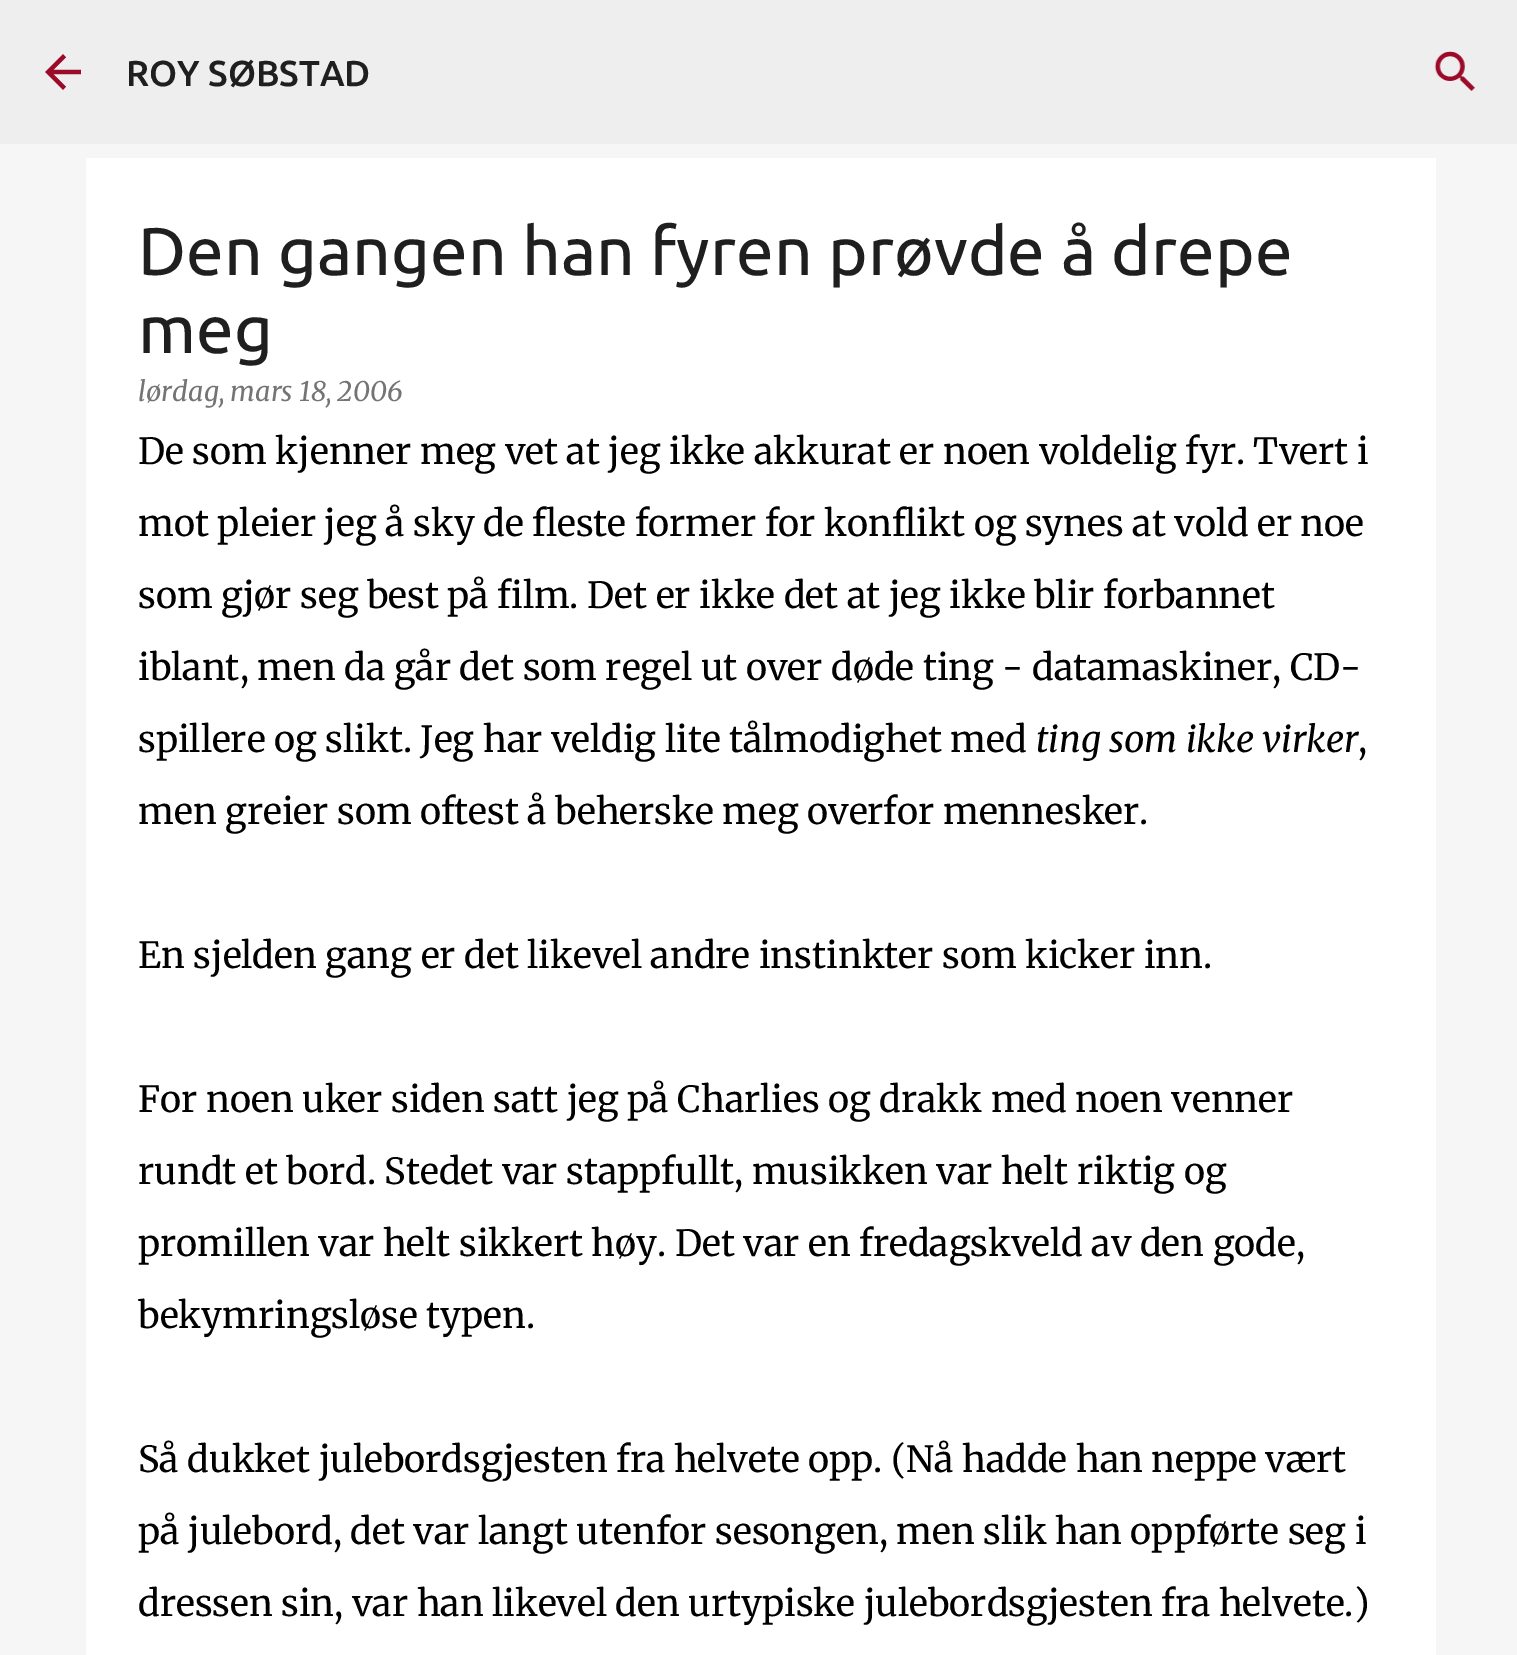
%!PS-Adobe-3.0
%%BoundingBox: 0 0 1517 1655
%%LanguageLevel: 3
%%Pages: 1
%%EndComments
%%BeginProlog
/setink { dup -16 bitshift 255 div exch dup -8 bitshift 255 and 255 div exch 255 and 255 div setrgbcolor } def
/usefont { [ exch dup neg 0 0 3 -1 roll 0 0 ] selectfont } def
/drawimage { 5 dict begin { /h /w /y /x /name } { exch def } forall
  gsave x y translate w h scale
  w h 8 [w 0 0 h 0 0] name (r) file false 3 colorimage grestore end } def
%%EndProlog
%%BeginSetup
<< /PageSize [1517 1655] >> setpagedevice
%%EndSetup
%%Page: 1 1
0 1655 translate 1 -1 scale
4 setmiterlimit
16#F6F6F6 setink
0 0 1517 1655 rectfill
16#EEEEEE setink
0 0 1517 144 rectfill
(img1.raw) 45 54 36 36 drawimage
/Ubuntu-Medium 36 usefont
16#1F1F1F setink
126 86 moveto (ROY SØBSTAD) show
(img2.raw) 1434 51 41 40 drawimage
16#FFFFFF setink
86 158 1350 1497 rectfill
/Ubuntu-Regular 67.5 usefont
16#1F1F1F setink
138 275 moveto (Den gangen han fyren prøvde å drepe) show
138 353 moveto (meg) show
/Merriweather-LightItalic 27 usefont
16#747474 setink
138 401 moveto (lørdag, mars 18, 2006) show
/Merriweather-Light 36 usefont
16#000000 setink
[
    [(De som kjenner meg vet at jeg ikke akkurat er noen voldelig fyr. Tvert i) 138 464]
    [(mot pleier jeg å sky de fleste former for konflikt og synes at vold er noe) 138 536]
    [(som gjør seg best på film. Det er ikke det at jeg ikke blir forbannet) 138 608]
    [(iblant, men da går det som regel ut over døde ting - datamaskiner, CD-) 138 680]
    [(spillere og slikt. Jeg har veldig lite tålmodighet med) 138 752]
] { aload pop moveto show } forall
/Merriweather-LightItalic 36 usefont
1036 752 moveto (ting som ikke virker) show
/Merriweather-Light 36 usefont
[
    [(,) 1358 752]
    [(men greier som oftest å beherske meg overfor mennesker.) 138 824]
    [(En sjelden gang er det likevel andre instinkter som kicker inn.) 138 968]
    [(For noen uker siden satt jeg på Charlies og drakk med noen venner) 138 1112]
    [(rundt et bord. Stedet var stappfullt, musikken var helt riktig og) 138 1184]
    [(promillen var helt sikkert høy. Det var en fredagskveld av den gode,) 138 1256]
    [(bekymringsløse typen.) 138 1328]
    [(Så dukket julebordsgjesten fra helvete opp. \(Nå hadde han neppe vært) 138 1472]
    [(på julebord, det var langt utenfor sesongen, men slik han oppførte seg i) 138 1544]
    [(dressen sin, var han likevel den urtypiske julebordsgjesten fra helvete.\)) 138 1616]
] { aload pop moveto show } forall
showpage
%%EOF
